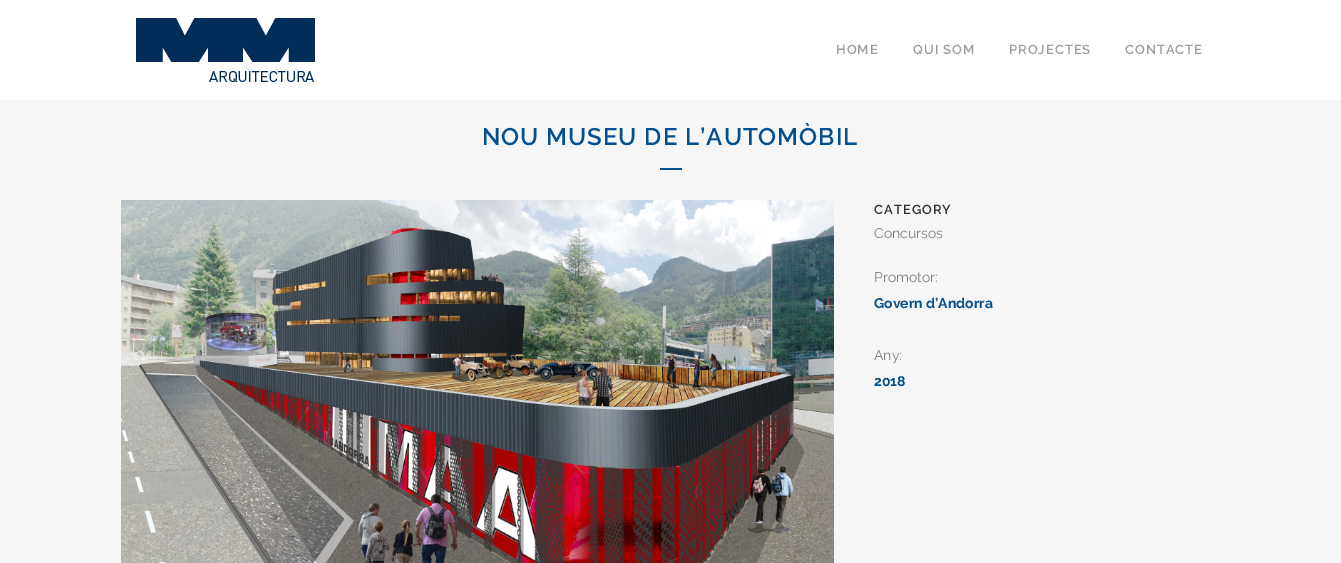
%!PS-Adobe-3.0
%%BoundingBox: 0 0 1341 563
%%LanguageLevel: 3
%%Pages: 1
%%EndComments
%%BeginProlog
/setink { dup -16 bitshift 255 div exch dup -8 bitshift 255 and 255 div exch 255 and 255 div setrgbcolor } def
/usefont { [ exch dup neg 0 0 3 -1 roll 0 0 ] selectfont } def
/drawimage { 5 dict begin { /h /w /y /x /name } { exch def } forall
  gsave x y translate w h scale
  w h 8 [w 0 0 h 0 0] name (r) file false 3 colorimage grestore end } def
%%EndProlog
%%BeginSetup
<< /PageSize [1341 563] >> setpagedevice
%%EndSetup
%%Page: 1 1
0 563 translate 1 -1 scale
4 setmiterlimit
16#F6F6F6 setink
0 0 1341 563 rectfill
16#FFFFFF setink
0 0 1341 100 rectfill
(img1.raw) 136 18 179 65 drawimage
/Raleway-SemiBold 13 usefont
16#9D9D9D setink
836 54 moveto 1 0 (HOME) ashow
913 54 moveto 1 0 (QUI SOM) ashow
1009 54 moveto 1 0 (PROJECTES) ashow
1125 54 moveto 1 0 (CONTACTE) ashow
/Raleway-SemiBold 24 usefont
16#02508F setink
482 145 moveto 1 0 (NOU MUSEU DE L’AUTOMÒBIL) ashow
660 168 22 2 rectfill
(img2.raw) 121 200 713 363 drawimage
/Raleway-SemiBold 13 usefont
16#303030 setink
874 214 moveto 1 0 (CATEGORY) ashow
/Raleway-Regular 14 usefont
16#818181 setink
874 238 moveto (Concursos) show
874 282 moveto (Promotor:) show
/Raleway-Bold 14 usefont
16#02508F setink
874 308 moveto (Govern d’Andorra) show
/Raleway-Regular 14 usefont
16#818181 setink
874 360 moveto (Any:) show
/Raleway-Bold 14 usefont
16#02508F setink
874 386 moveto (2018) show
showpage
%%EOF
